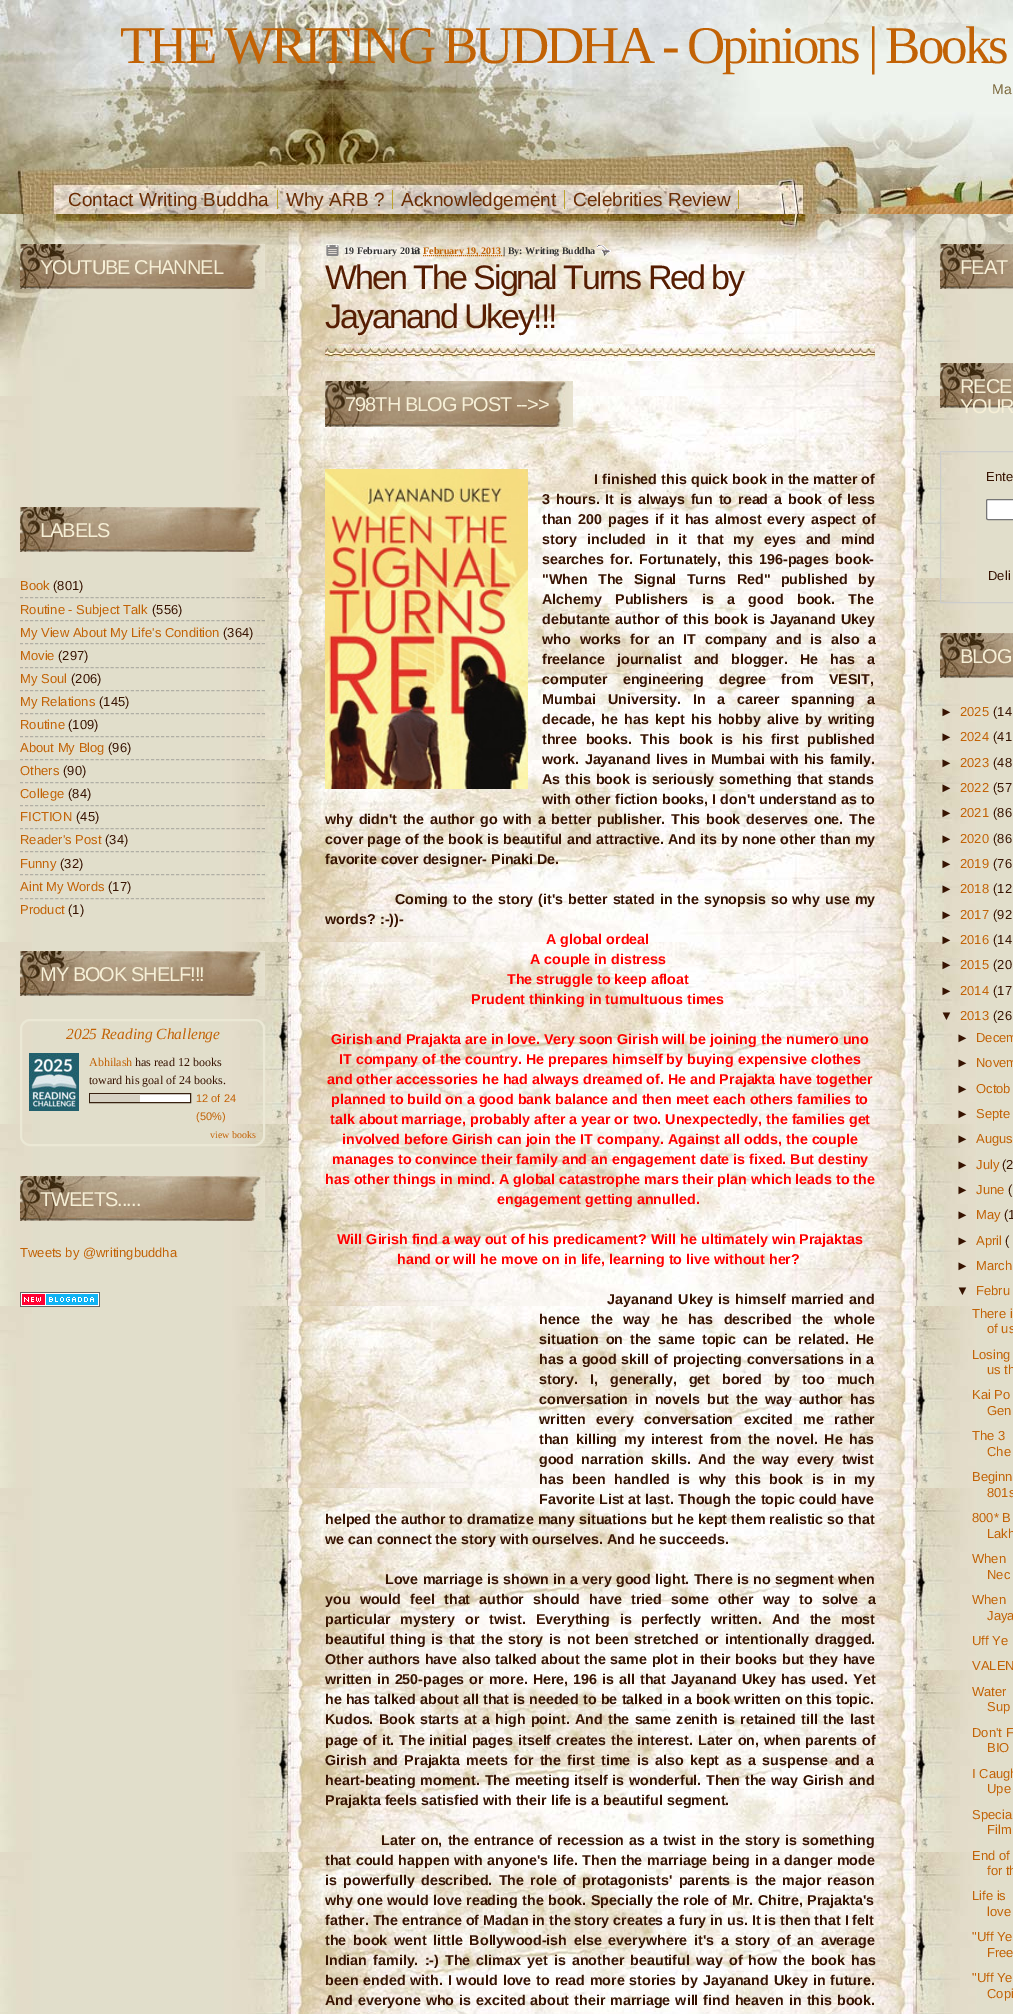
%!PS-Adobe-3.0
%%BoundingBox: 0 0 1013 2014
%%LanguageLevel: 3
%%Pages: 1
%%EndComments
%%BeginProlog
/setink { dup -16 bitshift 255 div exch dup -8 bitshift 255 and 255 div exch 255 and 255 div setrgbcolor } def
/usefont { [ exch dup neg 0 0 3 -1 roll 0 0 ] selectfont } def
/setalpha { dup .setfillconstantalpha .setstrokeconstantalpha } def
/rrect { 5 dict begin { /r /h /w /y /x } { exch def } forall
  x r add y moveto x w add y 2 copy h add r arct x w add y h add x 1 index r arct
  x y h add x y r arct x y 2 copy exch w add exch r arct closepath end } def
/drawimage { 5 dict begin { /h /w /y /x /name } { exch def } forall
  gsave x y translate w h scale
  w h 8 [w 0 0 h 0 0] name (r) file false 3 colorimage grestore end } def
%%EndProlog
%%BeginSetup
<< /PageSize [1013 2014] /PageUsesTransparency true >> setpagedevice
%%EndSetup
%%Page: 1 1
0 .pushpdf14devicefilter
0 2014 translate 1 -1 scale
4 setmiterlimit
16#FFFFFF setink
0 0 1013 2014 rectfill
(img1.raw) 0 0 1013 214 drawimage
/LiberationSerif-Regular 53 usefont
16#C26205 setink
120 63 moveto -3 0 (THE WRITING BUDDHA - Opinions | Books) ashow
/LiberationSans-Regular 14 usefont
16#7A673B setink
992 94 moveto (Ma) show
16#BDA42C setink
277 190 1 19 rectfill
/LiberationSans-Regular 19 usefont
16#6A2D04 setink
68 206 moveto (Contact Writing Buddha) show
16#BDA42C setink
392 190 1 19 rectfill
16#6A2D04 setink
286 206 moveto (Why ARB ?) show
16#BDA42C setink
564 190 1 19 rectfill
16#6A2D04 setink
401 206 moveto (Acknowledgement) show
16#BDA42C setink
738 190 1 19 rectfill
16#6A2D04 setink
573 206 moveto (Celebrities Review) show
(img2.raw) 0 390 1013 1624 drawimage
(img3.raw) 0 214 1013 176 drawimage
(img4.raw) 20 244 245 45 drawimage
/LiberationSans-Regular 20 usefont
16#F6EFD6 setink
40 274 moveto -1 0 (YOUTUBE CHANNEL) ashow
(img4.raw) 20 507 245 45 drawimage
40 537 moveto -1 0 (LABELS) ashow
/LiberationSans-Regular 13 usefont
16#C26205 setink
20 590 moveto (Book) show
16#371301 setink
53 590 moveto (\(801\)) show
0.5 setalpha
16#808080 setink
[3 2.04] 0 setdash
20 597.5 moveto 265 597.5 lineto stroke
1 setalpha
16#C26205 setink
20 614 moveto (Routine - Subject Talk) show
16#371301 setink
152 614 moveto (\(556\)) show
0.5 setalpha
16#808080 setink
20 620.5 moveto 265 620.5 lineto stroke
1 setalpha
16#C26205 setink
20 637 moveto (My View About My Life's Condition) show
16#371301 setink
223 637 moveto (\(364\)) show
0.5 setalpha
16#808080 setink
20 643.5 moveto 265 643.5 lineto stroke
1 setalpha
16#C26205 setink
20 660 moveto (Movie) show
16#371301 setink
58 660 moveto (\(297\)) show
0.5 setalpha
16#808080 setink
20 667.5 moveto 265 667.5 lineto stroke
1 setalpha
16#C26205 setink
20 683 moveto (My Soul) show
16#371301 setink
71 683 moveto (\(206\)) show
0.5 setalpha
16#808080 setink
20 690.5 moveto 265 690.5 lineto stroke
1 setalpha
16#C26205 setink
20 706 moveto (My Relations) show
16#371301 setink
99 706 moveto (\(145\)) show
0.5 setalpha
16#808080 setink
20 713.5 moveto 265 713.5 lineto stroke
1 setalpha
16#C26205 setink
20 729 moveto (Routine) show
16#371301 setink
68 729 moveto (\(109\)) show
0.5 setalpha
16#808080 setink
20 736.5 moveto 265 736.5 lineto stroke
1 setalpha
16#C26205 setink
20 752 moveto (About My Blog) show
16#371301 setink
108 752 moveto (\(96\)) show
0.5 setalpha
16#808080 setink
20 759.5 moveto 265 759.5 lineto stroke
1 setalpha
16#C26205 setink
20 775 moveto (Others) show
16#371301 setink
63 775 moveto (\(90\)) show
0.5 setalpha
16#808080 setink
20 782.5 moveto 265 782.5 lineto stroke
1 setalpha
16#C26205 setink
20 798 moveto (College) show
16#371301 setink
68 798 moveto (\(84\)) show
0.5 setalpha
16#808080 setink
20 805.5 moveto 265 805.5 lineto stroke
1 setalpha
16#C26205 setink
20 821 moveto (FICTION) show
16#371301 setink
76 821 moveto (\(45\)) show
0.5 setalpha
16#808080 setink
20 828.5 moveto 265 828.5 lineto stroke
1 setalpha
16#C26205 setink
20 844 moveto (Reader's Post) show
16#371301 setink
105 844 moveto (\(34\)) show
0.5 setalpha
16#808080 setink
20 851.5 moveto 265 851.5 lineto stroke
1 setalpha
16#C26205 setink
20 868 moveto (Funny) show
16#371301 setink
60 868 moveto (\(32\)) show
0.5 setalpha
16#808080 setink
20 874.5 moveto 265 874.5 lineto stroke
1 setalpha
16#C26205 setink
20 891 moveto (Aint My Words) show
16#371301 setink
108 891 moveto (\(17\)) show
0.5 setalpha
16#808080 setink
20 898.5 moveto 265 898.5 lineto stroke
1 setalpha
16#C26205 setink
20 914 moveto (Product) show
16#371301 setink
68 914 moveto (\(1\)) show
(img4.raw) 20 951 245 45 drawimage
/LiberationSans-Regular 20 usefont
16#F6EFD6 setink
40 981 moveto -1 0 (MY BOOK SHELF!!!) ashow
16#EBE8D5 setink
2 setlinewidth
[] 0 setdash
21 1020 243 125 9 rrect stroke
/LiberationSerif-Italic 15.5 usefont
16#C26205 setink
66 1039 moveto (2025 Reading Challenge) show
(img5.raw) 29 1053 50 58 drawimage
/LiberationSerif-Regular 12 usefont
89 1066 moveto (Abhilash) show
16#371301 setink
135 1066 moveto (has read 12 books) show
89 1084 moveto (toward his goal of 24 books.) show
16#FFFFFF setink
140 1094 50 8 rectfill
16#382110 setink
1 setlinewidth
89.5 1093.5 101 9 rectstroke
16#D7D2C4 setink
90 1094 50 8 rectfill
/LiberationSans-Regular 11 usefont
16#C26205 setink
196 1102 moveto (12 of 24) show
196 1120 moveto (\(50%\)) show
/LiberationSerif-Regular 10 usefont
210 1138 moveto (view books) show
(img4.raw) 20 1176 245 45 drawimage
/LiberationSans-Regular 20 usefont
16#F6EFD6 setink
40 1206 moveto -1 0 (TWEETS.....) ashow
/LiberationSans-Regular 13 usefont
16#C26205 setink
20 1257 moveto (Tweets by @writingbuddha) show
(img6.raw) 20 1292 80 15 drawimage
(img7.raw) 326 244 13 12 drawimage
/LiberationSerif-Bold 10 usefont
16#333333 setink
344 254 moveto (19 February 2013) show
16#C56608 setink
[1 1] 0 setdash
423 255.5 moveto 503.5 255.5 lineto stroke
16#C26205 setink
423 254 moveto (February 19, 2013) show
16#333333 setink
503 254 moveto (| By: Writing Buddha) show
(img8.raw) 597 245 14 11 drawimage
412 254 moveto (at) show
(img9.raw) 325 344 550 17 drawimage
/LiberationSans-Regular 34 usefont
16#561D02 setink
325 289 moveto -2 0 (When The Signal Turns Red by) ashow
325 328 moveto -2 0 (Jayanand Ukey!!!) ashow
(img10.raw) 325 381 248 46 drawimage
/LiberationSans-Regular 20 usefont
16#F6EFD6 setink
345 411 moveto -1 0 (798TH BLOG POST -->>) ashow
(img11.raw) 325 469 203 320 drawimage
/LiberationSans-Bold 14.3 usefont
16#371301 setink
594 484 moveto 0.25 0 32 (I finished this quick book in the matter of) widthshow
542 504 moveto 1.9 0 32 (3 hours. It is always fun to read a book of less) widthshow
542 524 moveto 2 0 32 (than 200 pages if it has almost every aspect of) widthshow
542 544 moveto 6 0 32 (story included in it that my eyes and mind) widthshow
542 564 moveto 2.25 0 32 (searches for. Fortunately, this 196-pages book-) widthshow
542 584 moveto 6.25 0 32 ("When The Signal Turns Red" published by) widthshow
542 604 moveto 9.5 0 32 (Alchemy Publishers is a good book. The) widthshow
542 624 moveto 1 0 32 (debutante author of this book is Jayanand Ukey) widthshow
542 644 moveto (who) show
580 644 moveto 4.75 0 32 (works for an IT company and is also a) widthshow
542 664 moveto 8.25 0 32 (freelance journalist and blogger. He has a) widthshow
542 684 moveto 11.5 0 32 (computer engineering degree from VESIT,) widthshow
542 704 moveto 7.75 0 32 (Mumbai University. In a career spanning a) widthshow
542 724 moveto 2.25 0 32 (decade, he has kept his hobby alive by writing) widthshow
542 744 moveto 4.75 0 32 (three books. This book is his first published) widthshow
542 764 moveto 1.25 0 32 (work. Jayanand lives in Mumbai with his family.) widthshow
542 784 moveto 1 0 32 (As this book is seriously something that stands) widthshow
542 804 moveto 0.25 0 32 (with other fiction books, I don't understand as to) widthshow
325 824 moveto 1.8 0 32 (why didn't the author go with a better publisher. This book deserves one. The) widthshow
325 844 moveto 0.25 0 32 (cover page of the book is beautiful and attractive. And its by none other than my) widthshow
325 864 moveto (favorite cover designer- Pinaki De.) show
395 904 moveto 1 0 32 (Coming to the story \(it's better stated in the synopsis so why use my) widthshow
325 924 moveto (words? :-\)\)-) show
16#FF0000 setink
[
    [(A global ordeal) 546 944]
    [(A couple in distress) 530 964]
    [(The struggle to keep afloat) 507 984]
    [(Prudent thinking in tumultuous times) 471 1004]
    [(Girish and Prajakta are in love. Very soon Girish will be joining the numero uno) 331 1044]
    [(IT company of the country. He prepares himself by buying expensive clothes) 339 1064]
    [(and other accessories he had always dreamed of. He and Prajakta have together) 327 1084]
    [(planned to build on a good bank balance and then meet each others families to) 331 1104]
    [(talk about marriage, probably after a year or two. Unexpectedly, the families get) 330 1124]
    [(involved before Girish can join the IT company. Against all odds, the couple) 342 1144]
    [(manages to convince their family and an engagement date is fixed. But destiny) 332 1164]
    [(has other things in mind. A global catastrophe mars their plan which leads to the) 325 1184]
    [(engagement getting annulled.) 497 1204]
    [(Will Girish find a way out of his predicament? Will he ultimately win Prajaktas) 337 1244]
    [(hand or will he move on in life, learning to live without her?) 397 1264]
] { aload pop moveto show } forall
16#371301 setink
607 1304 moveto 1.5 0 32 (Jayanand Ukey is himself married and) widthshow
539 1324 moveto 6.75 0 32 (hence the way he has described the whole) widthshow
539 1344 moveto 3 0 32 (situation on the same topic can be related. He) widthshow
539 1364 moveto 1 0 32 (has a good skill of projecting conversations in a) widthshow
539 1384 moveto 8 0 32 (story. I, generally, get bored by too much) widthshow
539 1404 moveto 3 0 32 (conversation in novels but the way author has) widthshow
539 1424 moveto 6.5 0 32 (written every conversation excited me rather) widthshow
539 1444 moveto 2.75 0 32 (than killing my interest from the novel. He has) widthshow
539 1464 moveto 3.5 0 32 (good narration skills. And the way every twist) widthshow
539 1484 moveto 4.75 0 32 (has been handled is why this book is in my) widthshow
539 1504 moveto 0.25 0 32 (Favorite List at last. Though the topic could have) widthshow
325 1524 moveto 0.1 0 32 (helped the author to dramatize many situations but he kept them realistic so that) widthshow
325 1544 moveto (we can connect the story with ourselves. And he succeeds.) show
385 1584 moveto 0.3 0 32 (Love marriage is shown in a very good light. There is no segment when) widthshow
325 1604 moveto 5.25 0 32 (you would feel that author should have tried some other way to solve a) widthshow
325 1624 moveto 6 0 32 (particular mystery or twist. Everything is perfectly written. And the most) widthshow
325 1644 moveto 1.9 0 32 (beautiful thing is that the story is not been stretched or intentionally dragged.) widthshow
325 1664 moveto 0.6 0 32 (Other authors have also talked about the same plot in their books but they have) widthshow
325 1684 moveto 1 0 32 (written in 250-pages or more. Here, 196 is all that Jayanand Ukey has used. Yet) widthshow
325 1704 moveto 0.1 0 32 (he has talked about all that is needed to be talked in a book written on this topic.) widthshow
325 1724 moveto 1.3 0 32 (Kudos. Book starts at a high point. And the same zenith is retained till the last) widthshow
325 1745 moveto 0.9 0 32 (page of it. The initial pages itself creates the interest. Later on, when parents of) widthshow
325 1765 moveto 2.4 0 32 (Girish and Prajakta meets for the first time is also kept as a suspense and a) widthshow
325 1785 moveto 0.75 0 32 (heart-beating moment. The meeting itself is wonderful. Then the way Girish and) widthshow
325 1805 moveto (Prajakta feels satisfied with their life is a beautiful segment.) show
381 1845 moveto 1.1 0 32 (Later on, the entrance of recession as a twist in the story is something) widthshow
325 1865 moveto 0.6 0 32 (that could happen with anyone's life. Then the marriage being in a danger mode) widthshow
325 1885 moveto 2.25 0 32 (is powerfully described. The role of protagonists' parents is the major reason) widthshow
325 1905 moveto 0.5 0 32 (why one would love reading the book. Specially the role of Mr. Chitre, Prajakta's) widthshow
325 1925 moveto (father. The entrance of Madan in the story creates a fury in us. It is then that I felt) show
325 1945 moveto 2.75 0 32 (the book went little Bollywood-ish else everywhere it's a story of an average) widthshow
325 1965 moveto 2.1 0 32 (Indian family. :-\) The climax yet is another beautiful way of how the book has) widthshow
325 1985 moveto 0.9 0 32 (been ended with. I would love to read more stories by Jayanand Ukey in future.) widthshow
325 2005 moveto 1 0 32 (And everyone who is excited about their marriage will find heaven in this book.) widthshow
(img12.raw) 940 244 73 45 drawimage
/LiberationSans-Regular 20 usefont
16#F6EFD6 setink
960 274 moveto -1 0 (FEAT) ashow
(img12.raw) 940 363 73 45 drawimage
960 393 moveto -1 0 (RECE) ashow
960 413 moveto -1 0 (YOUR) ashow
16#CCCCCC setink
[] 0 setdash
940.5 451.5 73 151 rectstroke
/LiberationSans-Regular 13 usefont
16#371301 setink
986 481 moveto (Ente) show
16#FFFFFF setink
986.5 499.5 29 20 1.5 rrect gsave fill grestore
16#767676 setink
stroke
16#371301 setink
988 580 moveto (Deli) show
(img12.raw) 940 633 73 45 drawimage
/LiberationSans-Regular 20 usefont
16#F6EFD6 setink
960 663 moveto -1 0 (BLOG) ashow
/LiberationSans-Regular 13 usefont
16#371301 setink
940 716 moveto (►) show
16#C26205 setink
960 716 moveto (2025) show
16#371301 setink
993 716 moveto (\(14) show
940 741 moveto (►) show
16#C26205 setink
960 741 moveto (2024) show
16#371301 setink
993 741 moveto (\(41) show
940 767 moveto (►) show
16#C26205 setink
960 767 moveto (2023) show
16#371301 setink
993 767 moveto (\(48) show
940 792 moveto (►) show
16#C26205 setink
960 792 moveto (2022) show
16#371301 setink
993 792 moveto (\(57) show
940 817 moveto (►) show
16#C26205 setink
960 817 moveto (2021) show
16#371301 setink
993 817 moveto (\(86) show
940 843 moveto (►) show
16#C26205 setink
960 843 moveto (2020) show
16#371301 setink
993 843 moveto (\(86) show
940 868 moveto (►) show
16#C26205 setink
960 868 moveto (2019) show
16#371301 setink
993 868 moveto (\(76) show
940 893 moveto (►) show
16#C26205 setink
960 893 moveto (2018) show
16#371301 setink
993 893 moveto (\(12) show
940 919 moveto (►) show
16#C26205 setink
960 919 moveto (2017) show
16#371301 setink
993 919 moveto (\(92) show
940 944 moveto (►) show
16#C26205 setink
960 944 moveto (2016) show
16#371301 setink
993 944 moveto (\(14) show
940 969 moveto (►) show
16#C26205 setink
960 969 moveto (2015) show
16#371301 setink
993 969 moveto (\(20) show
940 995 moveto (►) show
16#C26205 setink
960 995 moveto (2014) show
16#371301 setink
993 995 moveto (\(17) show
940 1020 moveto (▼) show
16#C26205 setink
960 1020 moveto (2013) show
16#371301 setink
993 1020 moveto (\(26) show
956 1042 moveto (►) show
16#C26205 setink
976 1042 moveto (Decem) show
16#371301 setink
956 1067 moveto (►) show
16#C26205 setink
976 1067 moveto (Novem) show
16#371301 setink
956 1093 moveto (►) show
16#C26205 setink
976 1093 moveto (Octob) show
16#371301 setink
956 1118 moveto (►) show
16#C26205 setink
976 1118 moveto (Septe) show
16#371301 setink
956 1143 moveto (►) show
16#C26205 setink
976 1143 moveto (Augus) show
16#371301 setink
956 1169 moveto (►) show
16#C26205 setink
976 1169 moveto (July) show
16#371301 setink
1002 1169 moveto (\(2) show
956 1194 moveto (►) show
16#C26205 setink
976 1194 moveto (June) show
16#371301 setink
1008 1194 moveto (\() show
956 1219 moveto (►) show
16#C26205 setink
976 1219 moveto (May) show
16#371301 setink
1004 1219 moveto (\(1) show
956 1245 moveto (►) show
16#C26205 setink
976 1245 moveto (April) show
16#371301 setink
1005 1245 moveto (\() show
956 1270 moveto (►) show
16#C26205 setink
976 1270 moveto (March) show
16#371301 setink
956 1295 moveto (▼) show
16#C26205 setink
[
    [(Febru) 976 1295]
    [(There i) 972 1318]
    [(of us) 987 1333]
    [(Losing) 972 1359]
    [(us th) 987 1374]
    [(Kai Po) 972 1399]
    [(Gen) 987 1415]
    [(The 3) 972 1440]
    [(Che) 987 1456]
    [(Beginn) 972 1481]
    [(801s) 987 1497]
    [(800* B) 972 1522]
    [(Lakh) 987 1538]
    [(When) 972 1563]
    [(Nec) 987 1579]
    [(When) 972 1604]
    [(Jaya) 987 1620]
    [(Uff Ye) 972 1645]
    [(VALEN) 972 1670]
    [(Water) 972 1696]
    [(Sup) 987 1711]
    [(Don't F) 972 1737]
    [(BIO) 987 1752]
    [(I Caugh) 972 1778]
    [(Upe) 987 1793]
    [(Specia) 972 1819]
    [(Film) 987 1834]
    [(End of) 972 1860]
    [(for th) 987 1875]
    [(Life is) 972 1900]
    [(love) 987 1916]
    [("Uff Ye) 972 1941]
    [(Free) 987 1957]
    [("Uff Ye) 972 1982]
    [(Copi) 987 1998]
] { aload pop moveto show } forall
.poppdf14devicefilter showpage
%%EOF
